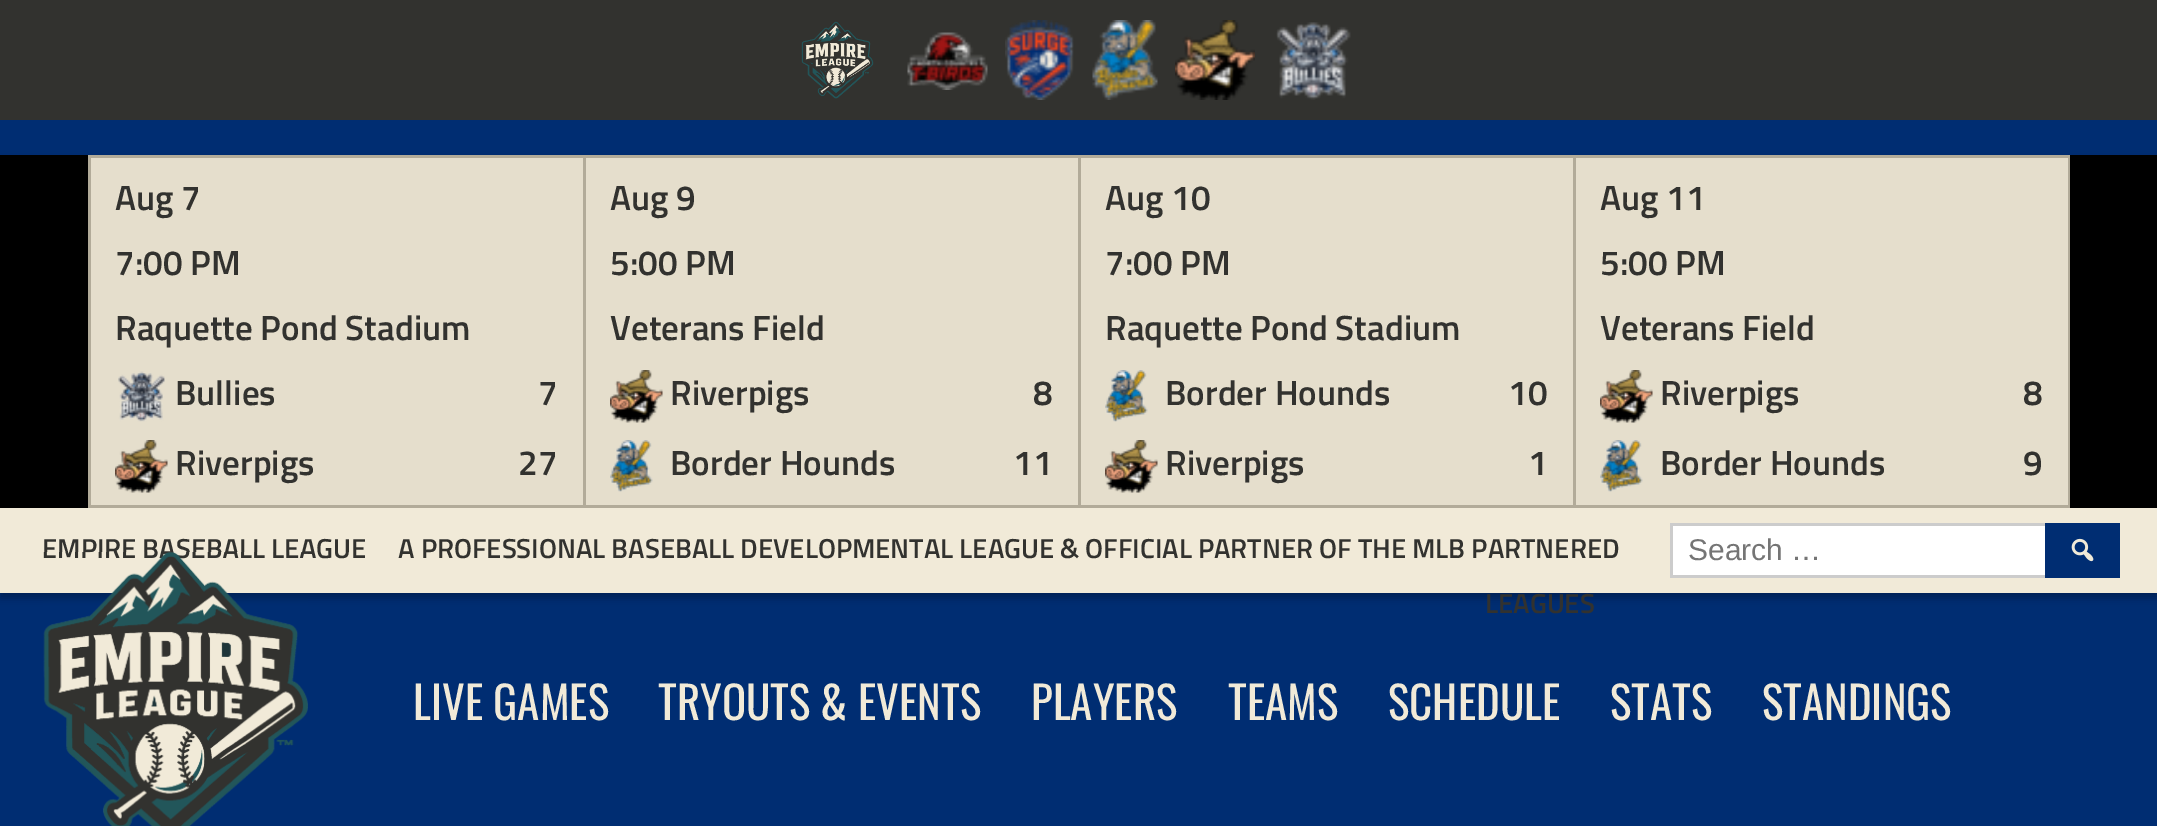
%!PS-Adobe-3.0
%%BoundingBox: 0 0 2157 826
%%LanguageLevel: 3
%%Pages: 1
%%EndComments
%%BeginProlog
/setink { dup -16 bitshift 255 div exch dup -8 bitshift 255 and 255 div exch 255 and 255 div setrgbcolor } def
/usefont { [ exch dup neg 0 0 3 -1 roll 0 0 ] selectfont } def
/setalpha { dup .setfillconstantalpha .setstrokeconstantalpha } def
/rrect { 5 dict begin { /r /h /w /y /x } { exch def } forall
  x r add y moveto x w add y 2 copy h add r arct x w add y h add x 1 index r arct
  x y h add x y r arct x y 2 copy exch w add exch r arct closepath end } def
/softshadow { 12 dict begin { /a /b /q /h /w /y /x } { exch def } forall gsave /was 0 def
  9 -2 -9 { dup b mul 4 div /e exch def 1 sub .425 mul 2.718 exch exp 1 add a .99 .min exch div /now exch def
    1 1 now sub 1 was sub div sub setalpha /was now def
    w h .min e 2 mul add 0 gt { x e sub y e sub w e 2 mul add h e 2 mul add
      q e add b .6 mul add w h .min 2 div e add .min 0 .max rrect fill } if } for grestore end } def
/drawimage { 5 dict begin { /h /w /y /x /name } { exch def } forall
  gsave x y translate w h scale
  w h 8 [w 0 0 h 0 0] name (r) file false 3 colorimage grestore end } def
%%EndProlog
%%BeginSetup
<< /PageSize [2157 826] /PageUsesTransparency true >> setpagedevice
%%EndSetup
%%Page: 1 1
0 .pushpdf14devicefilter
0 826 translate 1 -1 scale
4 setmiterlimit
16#002D72 setink
0 0 2157 826 rectfill
16#32322F setink
0 0 2157 120 rectfill
(img1.raw) 801 21 73 78 drawimage
(img2.raw) 907 32 81 58 drawimage
(img3.raw) 1005 20 69 80 drawimage
(img4.raw) 1092 20 66 80 drawimage
(img5.raw) 1175 20 80 80 drawimage
(img6.raw) 1276 22 75 78 drawimage
16#000000 setink
0 160 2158 438 0 4 0.25 softshadow
[
    [0 508 2157 85 16#F1EAD8]
    [0 155 2157 353 16#000000]
    [88 155 1982 3 16#B2AB99]
    [2068 155 2 353 16#B2AB99]
    [88 505 1982 3 16#B2AB99]
    [88 155 3 353 16#B2AB99]
    [91 158 1977 347 16#E5DECC]
] { aload pop setink rectfill } forall
/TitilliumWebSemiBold-SemiBold 35 usefont
16#32322F setink
[
    [(Aug 7) 115 210]
    [(7:00 PM) 115 275]
    [(Raquette Pond Stadium) 115 340]
] { aload pop moveto show } forall
(img7.raw) 118 371 47 51 drawimage
175 405 moveto (Bullies) show
538 405 moveto (7) show
(img8.raw) 115 440 53 53 drawimage
175 475 moveto (Riverpigs) show
518 475 moveto (27) show
16#B2AB99 setink
583 155 3 353 rectfill
16#32322F setink
[
    [(Aug 9) 610 210]
    [(5:00 PM) 610 275]
    [(Veterans Field) 610 340]
] { aload pop moveto show } forall
(img8.raw) 610 370 53 53 drawimage
670 405 moveto (Riverpigs) show
1033 405 moveto (8) show
(img9.raw) 610 440 43 52 drawimage
670 475 moveto (Border Hounds) show
1013 475 moveto (11) show
16#B2AB99 setink
1078 155 3 353 rectfill
16#32322F setink
[
    [(Aug 10) 1105 210]
    [(7:00 PM) 1105 275]
    [(Raquette Pond Stadium) 1105 340]
] { aload pop moveto show } forall
(img9.raw) 1105 370 43 52 drawimage
1165 405 moveto (Border Hounds) show
1508 405 moveto (10) show
(img8.raw) 1105 440 53 53 drawimage
1165 475 moveto (Riverpigs) show
1528 475 moveto (1) show
16#B2AB99 setink
1573 155 3 353 rectfill
16#32322F setink
[
    [(Aug 11) 1600 210]
    [(5:00 PM) 1600 275]
    [(Veterans Field) 1600 340]
] { aload pop moveto show } forall
(img8.raw) 1600 370 53 53 drawimage
1660 405 moveto (Riverpigs) show
2023 405 moveto (8) show
(img9.raw) 1600 440 43 52 drawimage
1660 475 moveto (Border Hounds) show
2023 475 moveto (9) show
/TitilliumWebSemiBold-SemiBold 27.5 usefont
[
    [(EMPIRE BASEBALL LEAGUE) 42 558]
    [(A PROFESSIONAL BASEBALL DEVELOPMENTAL LEAGUE & OFFICIAL PARTNER OF THE MLB PARTNERED) 398 558]
    [(LEAGUES) 1485 613]
] { aload pop moveto show } forall
(img10.raw) 43 552 265 274 drawimage
[
    [1673 526 372 49 16#FFFFFF]
    [1670 523 375 3 16#CCCCCC]
    [1670 575 375 3 16#CCCCCC]
    [1670 523 3 55 16#CCCCCC]
] { aload pop setink rectfill } forall
/LiberationSans-Regular 30 usefont
16#757575 setink
1688 560 moveto (Search …) show
16#002D72 setink
2045 523 75 55 rectfill
(img11.raw) 2071 538 23 24 drawimage
/Oswald-Regular 45 usefont
16#F1EAD8 setink
[
    [(LIVE GAMES) 413 720]
    [(TRYOUTS & EVENTS) 658 720]
    [(PLAYERS) 1031 720]
    [(TEAMS) 1228 720]
    [(SCHEDULE) 1388 720]
    [(STATS) 1610 720]
    [(STANDINGS) 1762 720]
] { aload pop moveto show } forall
.poppdf14devicefilter showpage
%%EOF
